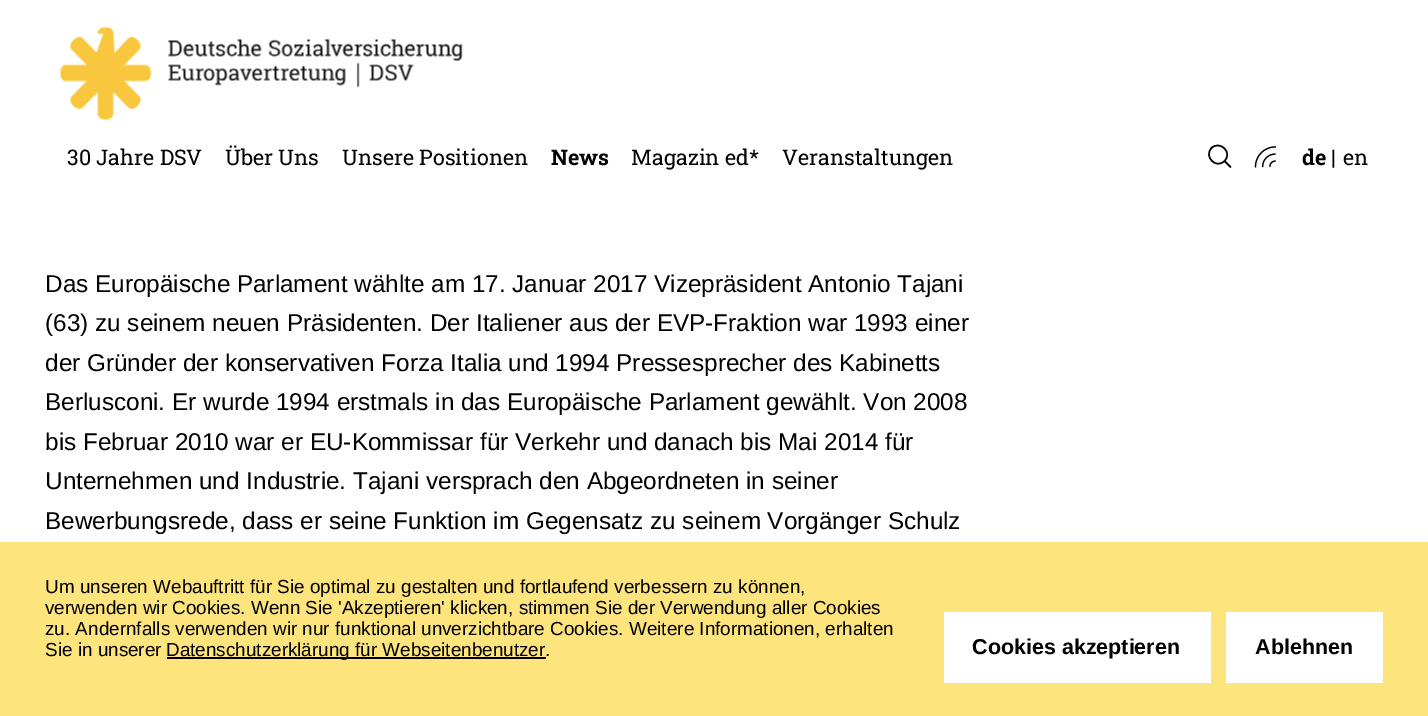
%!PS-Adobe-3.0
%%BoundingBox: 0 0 1428 716
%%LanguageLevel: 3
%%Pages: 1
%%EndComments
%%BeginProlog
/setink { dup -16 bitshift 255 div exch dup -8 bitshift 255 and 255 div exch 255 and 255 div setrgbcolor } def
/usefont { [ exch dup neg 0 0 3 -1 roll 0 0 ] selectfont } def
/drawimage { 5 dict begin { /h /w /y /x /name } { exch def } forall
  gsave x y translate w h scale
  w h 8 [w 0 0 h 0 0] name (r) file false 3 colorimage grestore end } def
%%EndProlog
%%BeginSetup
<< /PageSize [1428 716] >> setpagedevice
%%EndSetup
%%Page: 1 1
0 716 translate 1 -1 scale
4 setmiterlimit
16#FFFFFF setink
0 0 1428 716 rectfill
(img1.raw) 60 27 403 93 drawimage
/RobotoSlab-Regular 21.5 usefont
16#000000 setink
[
    [(30 Jahre DSV) 67 165]
    [(Über Uns) 225 165]
    [(Unsere Positionen) 342 165]
] { aload pop moveto show } forall
/RobotoSlab-Bold 21.5 usefont
551 165 moveto (News) show
/RobotoSlab-Regular 21.5 usefont
631 165 moveto (Magazin ed*) show
782 165 moveto (Veranstaltungen) show
1.5 setlinewidth
1 setlinecap
1 setlinejoin
1224.5 161 moveto 1233 152.5 1220 140 1211.5 148 curveto 1203.5 156.5 1216 169.5 1224.5 161 curveto closepath 1225 161.5 moveto 1230.5 167 lineto stroke
(img2.raw) 1254 146 23 22 drawimage
/RobotoSlab-Bold 21.5 usefont
1302 165 moveto (de |) show
/RobotoSlab-Regular 21.5 usefont
1343 165 moveto (en) show
/LiberationSans-Regular 24.3 usefont
[
    [(Das Europäische Parlament wählte am 17. Januar 2017 Vizepräsident Antonio Tajani) 45 292]
    [(\(63\) zu seinem neuen Präsidenten. Der Italiener aus der EVP-Fraktion war 1993 einer) 45 331]
    [(der Gründer der konservativen Forza Italia und 1994 Pressesprecher des Kabinetts) 45 371]
    [(Berlusconi. Er wurde 1994 erstmals in das Europäische Parlament gewählt. Von 2008) 45 410]
    [(bis Februar 2010 war er EU-Kommissar für Verkehr und danach bis Mai 2014 für) 45 450]
    [(Unternehmen und Industrie. Tajani versprach den Abgeordneten in seiner) 45 489]
    [(Bewerbungsrede, dass er seine Funktion im Gegensatz zu seinem Vorgänger Schulz) 45 529]
] { aload pop moveto show } forall
16#FEE47D setink
0 542 1428 174 rectfill
/LiberationSans-Regular 18.9 usefont
16#000000 setink
[
    [(Um unseren Webauftritt für Sie optimal zu gestalten und fortlaufend verbessern zu können,) 45 593]
    [(verwenden wir Cookies. Wenn Sie 'Akzeptieren' klicken, stimmen Sie der Verwendung aller Cookies) 45 614]
    [(zu. Andernfalls verwenden wir nur funktional unverzichtbare Cookies. Weitere Informationen, erhalten) 45 635]
    [(Sie in unserer) 45 656]
] { aload pop moveto show } forall
167 657 379 2 rectfill
166 656 moveto (Datenschutzerklärung für Webseitenbenutzer.) show
16#FFFFFF setink
944 612 267 71 rectfill
/LiberationSans-Bold 21.5 usefont
16#000000 setink
972 654 moveto (Cookies akzeptieren) show
16#FFFFFF setink
1226 612 157 71 rectfill
16#000000 setink
1255 654 moveto (Ablehnen) show
showpage
%%EOF
